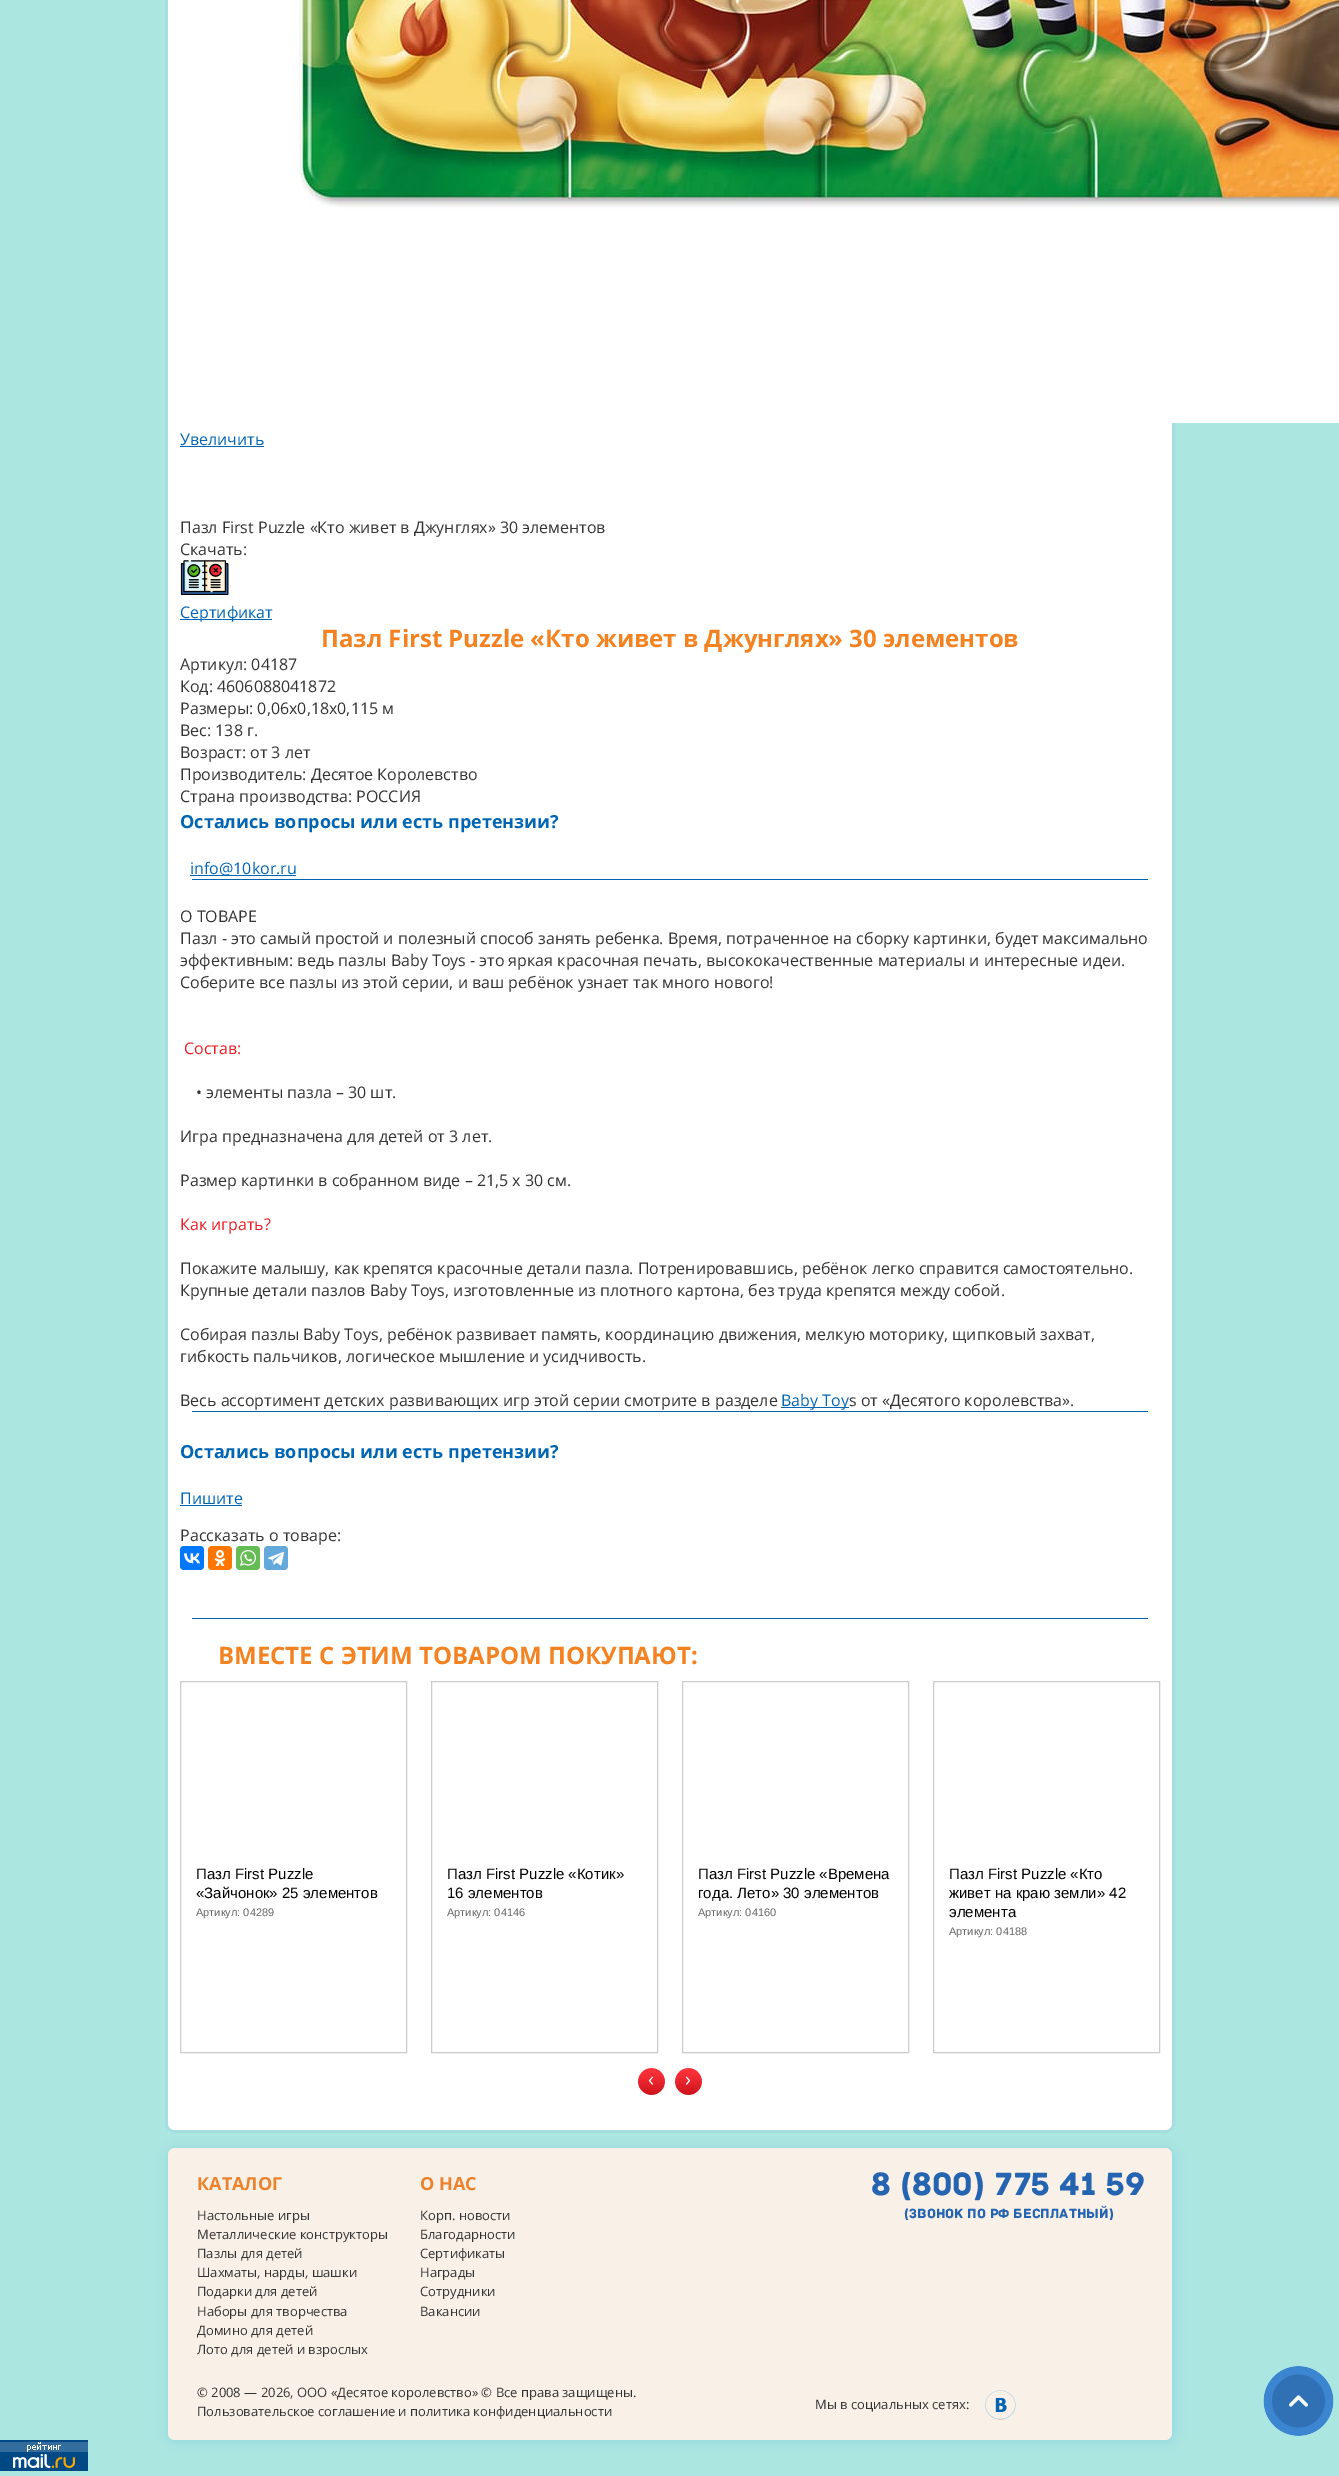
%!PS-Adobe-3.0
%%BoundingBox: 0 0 1339 2476
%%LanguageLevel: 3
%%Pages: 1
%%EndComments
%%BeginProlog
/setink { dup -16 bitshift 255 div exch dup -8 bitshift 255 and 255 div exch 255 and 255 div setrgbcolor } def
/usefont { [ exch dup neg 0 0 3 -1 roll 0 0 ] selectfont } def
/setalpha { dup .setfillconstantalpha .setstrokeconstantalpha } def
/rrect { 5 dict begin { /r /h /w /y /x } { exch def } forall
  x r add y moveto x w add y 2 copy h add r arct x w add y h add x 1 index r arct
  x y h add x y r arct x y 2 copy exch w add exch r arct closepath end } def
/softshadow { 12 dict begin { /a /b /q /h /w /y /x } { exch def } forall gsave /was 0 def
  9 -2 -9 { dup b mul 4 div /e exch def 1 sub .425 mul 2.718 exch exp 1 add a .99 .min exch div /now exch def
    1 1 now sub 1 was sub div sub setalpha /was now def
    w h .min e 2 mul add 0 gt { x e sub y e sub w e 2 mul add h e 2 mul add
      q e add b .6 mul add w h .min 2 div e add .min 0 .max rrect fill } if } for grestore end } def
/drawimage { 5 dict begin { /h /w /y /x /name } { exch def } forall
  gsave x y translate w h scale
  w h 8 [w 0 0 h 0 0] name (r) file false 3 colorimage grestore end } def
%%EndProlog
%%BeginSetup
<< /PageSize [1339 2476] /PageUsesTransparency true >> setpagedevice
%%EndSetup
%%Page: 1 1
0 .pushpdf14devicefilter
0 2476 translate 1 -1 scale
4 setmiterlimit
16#ABE6E1 setink
0 0 1339 2476 rectfill
16#A6DEE0 setink
3 setlinewidth
166.5 -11.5 1007 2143 8.5 rrect stroke
16#FFFFFF setink
168 -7 1004 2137 7 rrect fill
(img1.raw) 292 0 1047 423 drawimage
/OpenSans-Regular 16 usefont
16#0066B3 setink
180 445 moveto (Увеличить) show
180 446 84 1 rectfill
16#333333 setink
180 533 moveto (Пазл First Puzzle «Кто живет в Джунглях» 30 элементов) show
180 555 moveto (Скачать:) show
(img2.raw) 180 560 49 35 drawimage
16#0066B3 setink
180 619 92 1 rectfill
180 618 moveto (Сертификат) show
/OpenSans-Bold 24 usefont
16#F58220 setink
321 647 moveto (Пазл First Puzzle «Кто живет в Джунглях» 30 элементов) show
/OpenSans-Regular 16 usefont
16#333333 setink
[
    [(Артикул: 04187) 180 670]
    [(Код: 4606088041872) 180 692]
    [(Размеры: 0,06x0,18x0,115 м) 180 714]
    [(Вес: 138 г.) 180 736]
    [(Возраст: от 3 лет) 180 758]
    [(Производитель: Десятое Королевство) 180 780]
    [(Страна производства: РОССИЯ) 180 802]
] { aload pop moveto show } forall
/OpenSans-Bold 18 usefont
16#0066B3 setink
180 828 moveto (Остались вопросы или есть претензии?) show
190 875 106 1 rectfill
/OpenSans-Regular 16 usefont
190 874 moveto (info@10kor.ru) show
16#0064B2 setink
192 879 956 1 rectfill
16#333333 setink
[
    [(О ТОВАРЕ) 180 922]
    [(Пазл - это самый простой и полезный способ занять ребенка. Время, потраченное на сборку картинки, будет максимально) 180 944]
    [(эффективным: ведь пазлы Baby Toys - это яркая красочная печать, высококачественные материалы и интересные идеи.) 180 966]
    [(Соберите все пазлы из этой серии, и ваш ребёнок узнает так много нового!) 180 988]
] { aload pop moveto show } forall
16#EE1D24 setink
184 1054 moveto (Состав:) show
16#333333 setink
[
    [(• элементы пазла – 30 шт.) 196 1098]
    [(Игра предназначена для детей от 3 лет.) 180 1142]
    [(Размер картинки в собранном виде – 21,5 х 30 см.) 180 1186]
] { aload pop moveto show } forall
16#EE1D24 setink
180 1230 moveto (Как играть?) show
16#333333 setink
[
    [(Покажите малышу, как крепятся красочные детали пазла. Потренировавшись, ребёнок легко справится самостоятельно.) 180 1274]
    [(Крупные детали пазлов Baby Toys, изготовленные из плотного картона, без труда крепятся между собой.) 180 1296]
    [(Собирая пазлы Baby Toys, ребёнок развивает память, координацию движения, мелкую моторику, щипковый захват,) 180 1340]
    [(гибкость пальчиков, логическое мышление и усидчивость.) 180 1362]
    [(Весь ассортимент детских развивающих игр этой серии смотрите в разделе) 180 1406]
] { aload pop moveto show } forall
16#0066B3 setink
781 1407 68 1 rectfill
781 1406 moveto (Baby Toy) show
16#333333 setink
849 1406 moveto (s от «Десятого королевства».) show
16#0064B2 setink
192 1411 956 1 rectfill
/OpenSans-Bold 18 usefont
16#0066B3 setink
180 1458 moveto (Остались вопросы или есть претензии?) show
/OpenSans-Regular 16 usefont
180 1504 moveto (Пишите) show
180 1505 62 1 rectfill
16#333333 setink
180 1541 moveto (Рассказать о товаре:) show
16#0077FF setink
180 1546 24 24 4 rrect fill
(img3.raw) 184 1553 16 11 drawimage
16#FF7700 setink
208 1546 24 24 4 rrect fill
(img4.raw) 214 1550 12 16 drawimage
16#65BC54 setink
236 1546 24 24 4 rrect fill
(img5.raw) 240 1550 16 16 drawimage
16#64A9DC setink
264 1546 24 24 4 rrect fill
(img6.raw) 268 1552 16 14 drawimage
16#0064B2 setink
192 1618 956 1 rectfill
/OpenSans-Bold 24 usefont
16#F58220 setink
218 1664 moveto (ВМЕСТЕ С ЭТИМ ТОВАРОМ ПОКУПАЮТ:) show
16#CCCCCC setink
1 setlinewidth
180.5 1681.5 226 371 rectstroke
/LiberationSans-Regular 15 usefont
16#000000 setink
196 1879 moveto (Пазл First Puzzle) show
196 1898 moveto («Зайчонок» 25 элементов) show
/LiberationSans-Regular 11 usefont
16#666666 setink
196 1916 moveto (Артикул: 04289) show
16#CCCCCC setink
431.5 1681.5 226 371 rectstroke
/LiberationSans-Regular 15 usefont
16#000000 setink
447 1879 moveto (Пазл First Puzzle «Котик») show
447 1898 moveto (16 элементов) show
/LiberationSans-Regular 11 usefont
16#666666 setink
447 1916 moveto (Артикул: 04146) show
16#CCCCCC setink
682.5 1681.5 226 371 rectstroke
/LiberationSans-Regular 15 usefont
16#000000 setink
698 1879 moveto (Пазл First Puzzle «Времена) show
698 1898 moveto (года. Лето» 30 элементов) show
/LiberationSans-Regular 11 usefont
16#666666 setink
698 1916 moveto (Артикул: 04160) show
16#CCCCCC setink
933.5 1681.5 226 371 rectstroke
/LiberationSans-Regular 15 usefont
16#000000 setink
[
    [(Пазл First Puzzle «Кто) 949 1879]
    [(живет на краю земли» 42) 949 1898]
    [(элемента) 949 1917]
] { aload pop moveto show } forall
/LiberationSans-Regular 11 usefont
16#666666 setink
949 1935 moveto (Артикул: 04188) show
(img7.raw) 638 2068 27 27 drawimage
/OpenSans-Regular 20 usefont
16#FFFFFF setink
648 2086 moveto (‹) show
(img7.raw) 675 2068 27 27 drawimage
685 2086 moveto (›) show
16#8FD5E0 setink
169 2149 1004 292 7 6 1 softshadow
16#F9F0E8 setink
168 2148 1004 292 7 rrect fill
/OpenSans-Bold 18 usefont
16#EC832C setink
197 2190 moveto (КАТАЛОГ) show
/OpenSans-Regular 13 usefont
16#333333 setink
[
    [(Настольные игры) 197 2220]
    [(Металлические конструкторы) 197 2239]
    [(Пазлы для детей) 197 2258]
    [(Шахматы, нарды, шашки) 197 2277]
    [(Подарки для детей) 197 2296]
    [(Наборы для творчества) 197 2316]
    [(Домино для детей) 197 2335]
    [(Лото для детей и взрослых) 197 2354]
] { aload pop moveto show } forall
/OpenSans-Bold 18 usefont
16#EC832C setink
420 2190 moveto (О НАС) show
/OpenSans-Regular 13 usefont
16#333333 setink
[
    [(Корп. новости) 420 2220]
    [(Благодарности) 420 2239]
    [(Сертификаты) 420 2258]
    [(Награды) 420 2277]
    [(Сотрудники) 420 2296]
    [(Вакансии) 420 2316]
] { aload pop moveto show } forall
/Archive-Regular 34 usefont
16#2464B1 setink
871 2195 moveto (8 \(800\) 775 41 59) show
/Archive-Regular 14 usefont
904 2218 moveto (\(звонок по рф бесплатный\)) show
/OpenSans-Regular 13 usefont
16#333333 setink
[
    [(© 2008 — 2026, ООО «Десятое королевство» © Все права защищены.) 197 2397]
    [(Пользовательское соглашение и политика конфиденциальности) 197 2416]
    [(Мы в социальных сетях:) 815 2409]
] { aload pop moveto show } forall
(img8.raw) 985 2390 31 30 drawimage
(img9.raw) 1263 2366 71 70 drawimage
(img10.raw) 0 2440 88 31 drawimage
.poppdf14devicefilter showpage
%%EOF
